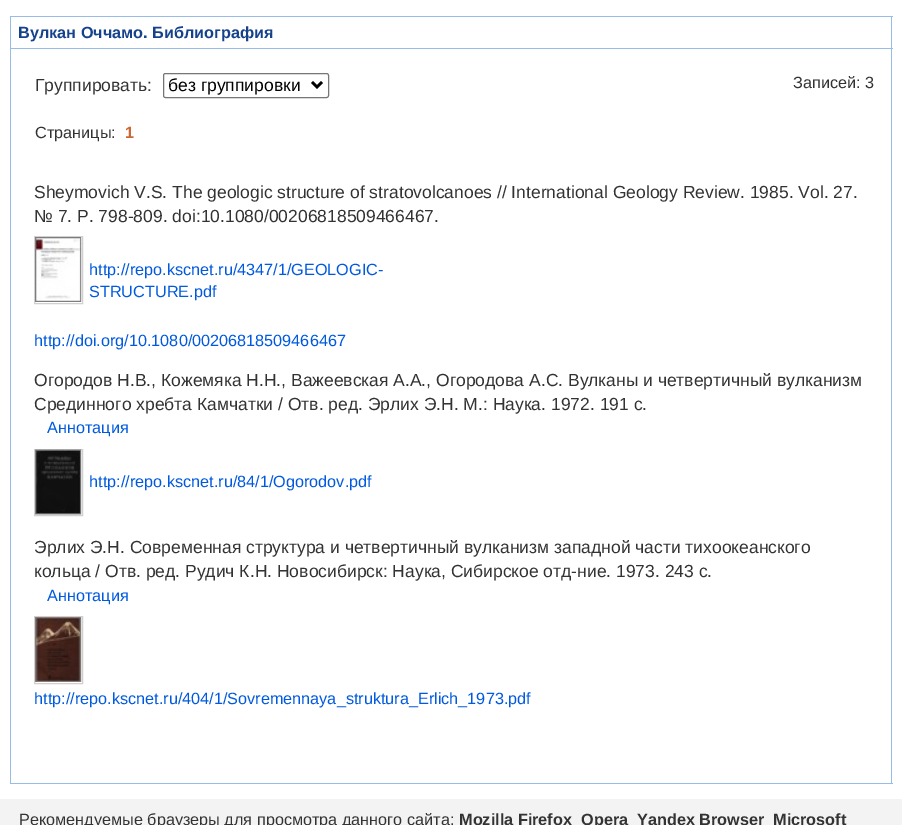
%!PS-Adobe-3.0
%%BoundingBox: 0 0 902 825
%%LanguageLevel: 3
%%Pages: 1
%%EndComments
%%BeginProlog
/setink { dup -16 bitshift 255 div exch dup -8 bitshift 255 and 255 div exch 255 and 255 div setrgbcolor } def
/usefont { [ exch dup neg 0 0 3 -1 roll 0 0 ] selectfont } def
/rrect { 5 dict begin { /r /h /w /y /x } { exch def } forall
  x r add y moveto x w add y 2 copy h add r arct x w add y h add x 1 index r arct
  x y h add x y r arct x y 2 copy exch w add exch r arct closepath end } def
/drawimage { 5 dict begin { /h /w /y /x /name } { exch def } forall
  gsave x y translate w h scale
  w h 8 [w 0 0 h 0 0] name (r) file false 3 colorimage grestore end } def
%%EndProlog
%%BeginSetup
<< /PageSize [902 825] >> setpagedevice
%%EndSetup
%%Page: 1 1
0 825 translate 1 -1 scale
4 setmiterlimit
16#FFFFFF setink
0 0 902 825 rectfill
[
    [10 16 883 1 16#99BBE8]
    [891 48 1 736 16#99BBE8]
    [891 16 1 33 16#99BBE8]
    [10 783 883 1 16#99BBE8]
    [10 48 1 736 16#99BBE8]
    [10 48 883 1 16#99BBE8]
    [10 16 1 33 16#99BBE8]
] { aload pop setink rectfill } forall
/LiberationSans-Bold 16.25 usefont
16#15428B setink
18 38 moveto (Вулкан Оччамо. Библиография) show
/LiberationSans-Regular 17.5 usefont
16#333333 setink
35 91 moveto (Группировать:) show
16#767676 setink
163.5 73.5 165 24 2 rrect stroke
16#000000 setink
2.5 setlinewidth
312 82 moveto 317 87 lineto 322 82 lineto stroke
168 91 moveto (без группировки) show
/LiberationSans-Regular 16.25 usefont
16#333333 setink
793 88 moveto (Записей: 3) show
35 138 moveto (Страницы:) show
/LiberationSans-Bold 16.25 usefont
16#CC6633 setink
125 138 moveto (1) show
/LiberationSans-Regular 17.5 usefont
16#333333 setink
34 198 moveto (Sheymovich V.S. The geologic structure of stratovolcanoes // International Geology Review. 1985. Vol. 27.) show
34 222 moveto (№ 7. P. 798-809. doi:10.1080/00206818509466467.) show
16#D0D0D0 setink
1 setlinewidth
34.5 236.5 48 67 rectstroke
(img1.raw) 35 237 47 65 drawimage
/LiberationSans-Regular 16.25 usefont
16#0059DF setink
[
    [(http://repo.kscnet.ru/4347/1/GEOLOGIC-) 89 275]
    [(STRUCTURE.pdf) 89 297]
    [(http://doi.org/10.1080/00206818509466467) 34 346]
] { aload pop moveto show } forall
/LiberationSans-Regular 17.5 usefont
16#333333 setink
34 386 moveto (Огородов Н.В., Кожемяка Н.Н., Важеевская А.А., Огородова А.С. Вулканы и четвертичный вулканизм) show
34 410 moveto (Срединного хребта Камчатки / Отв. ред. Эрлих Э.Н. М.: Наука. 1972. 191 с.) show
/LiberationSans-Regular 16.25 usefont
16#0059DF setink
47 433 moveto (Аннотация) show
16#D0D0D0 setink
34.5 449.5 48 66 rectstroke
(img2.raw) 35 449 47 66 drawimage
16#0059DF setink
89 487 moveto (http://repo.kscnet.ru/84/1/Ogorodov.pdf) show
/LiberationSans-Regular 17.5 usefont
16#333333 setink
34 553 moveto (Эрлих Э.Н. Современная структура и четвертичный вулканизм западной части тихоокеанского) show
34 577 moveto (кольца / Отв. ред. Рудич К.Н. Новосибирск: Наука, Сибирское отд-ние. 1973. 243 с.) show
/LiberationSans-Regular 16.25 usefont
16#0059DF setink
47 601 moveto (Аннотация) show
16#D0D0D0 setink
34.5 616.5 48 67 rectstroke
(img3.raw) 35 617 47 65 drawimage
16#0059DF setink
34 704 moveto (http://repo.kscnet.ru/404/1/Sovremennaya_struktura_Erlich_1973.pdf) show
16#F3F3F3 setink
0 799 902 26 rectfill
16#333333 setink
19 825 moveto (Рекомендуемые браузеры для просмотра данного сайта:) show
/LiberationSans-Bold 16.25 usefont
[
    [(Mozilla Firefox) 459 825]
    [(Opera) 581 825]
    [(Yandex Browser) 637 825]
    [(Microsoft) 773 825]
] { aload pop moveto show } forall
showpage
%%EOF
